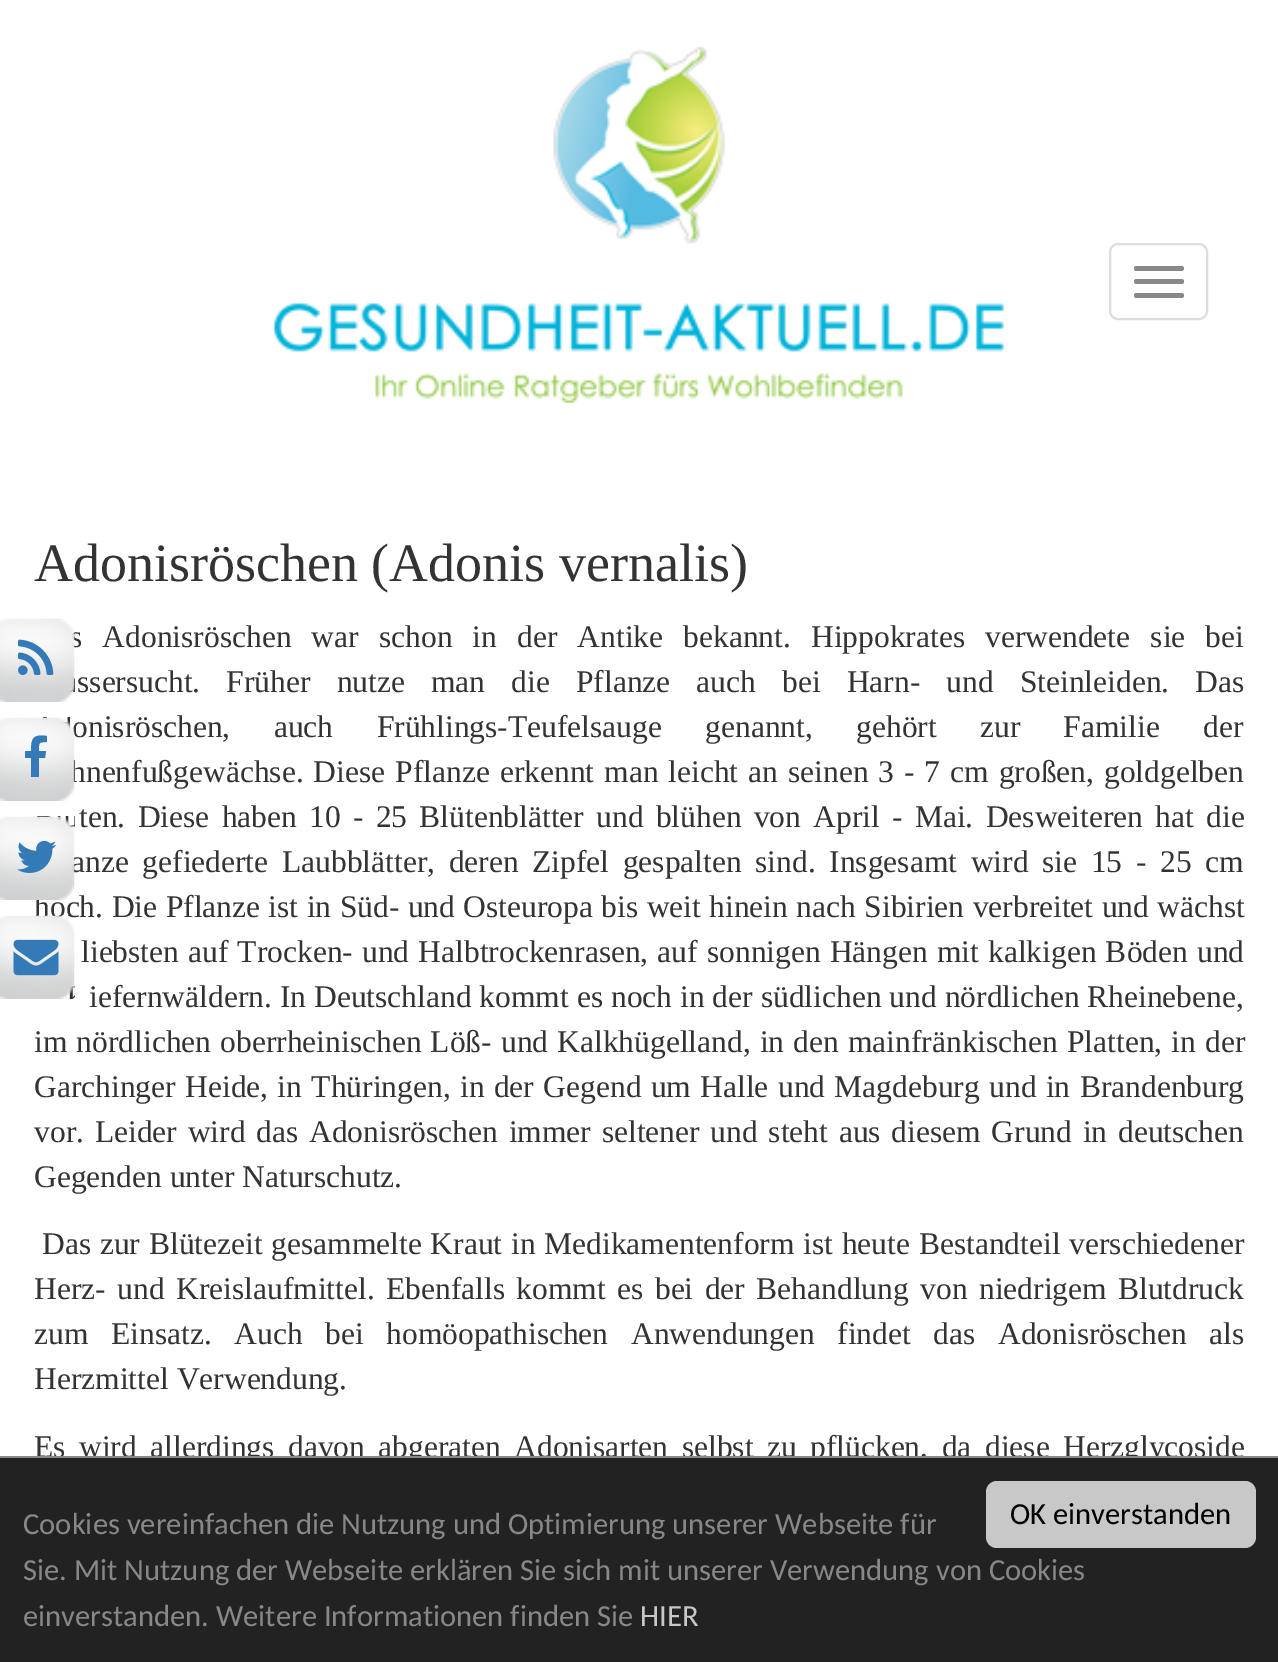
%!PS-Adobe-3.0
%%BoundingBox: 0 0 1278 1662
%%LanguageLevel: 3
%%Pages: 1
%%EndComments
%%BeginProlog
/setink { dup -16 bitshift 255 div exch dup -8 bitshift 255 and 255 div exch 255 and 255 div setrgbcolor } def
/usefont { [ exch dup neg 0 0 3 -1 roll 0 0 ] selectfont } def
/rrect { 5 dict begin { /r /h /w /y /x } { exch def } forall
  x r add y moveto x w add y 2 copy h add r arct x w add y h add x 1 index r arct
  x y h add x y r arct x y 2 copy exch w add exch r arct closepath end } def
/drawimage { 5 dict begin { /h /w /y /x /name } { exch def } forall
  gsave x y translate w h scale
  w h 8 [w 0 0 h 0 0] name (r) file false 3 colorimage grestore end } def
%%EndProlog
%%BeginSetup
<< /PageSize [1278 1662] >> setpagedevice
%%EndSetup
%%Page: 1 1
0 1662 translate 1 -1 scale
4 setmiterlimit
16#FFFFFF setink
0 0 1278 1662 rectfill
(img1.raw) 274 47 730 356 drawimage
16#DDDDDD setink
2 setlinewidth
1110 244 97 75 8 rrect stroke
16#888888 setink
1134 266 50 5 2.5 rrect fill
1134 279 50 5 2.5 rrect fill
1134 293 50 5 2.5 rrect fill
/LiberationSerif-Regular 54 usefont
16#333333 setink
34 581 moveto (Adonisröschen \(Adonis vernalis\)) show
/LiberationSerif-Regular 31.5 usefont
70 647 moveto 12.25 0 32 (s Adonisröschen war schon in der Antike bekannt. Hippokrates verwendete sie bei) widthshow
77 692 moveto 18.25 0 32 (ssersucht. Früher nutze man die Pflanze auch bei Harn- und Steinleiden. Das) widthshow
72 737 moveto 35.5 0 32 (onisröschen, auch Frühlings-Teufelsauge genannt, gehört zur Familie der) widthshow
70 782 moveto 2.1 0 32 (hnenfußgewächse. Diese Pflanze erkennt man leicht an seinen 3 - 7 cm großen, goldgelben) widthshow
79 827 moveto 4.4 0 32 (ten. Diese haben 10 - 25 Blütenblätter und blühen von April - Mai. Desweiteren hat die) widthshow
71 872 moveto 5.75 0 32 (anze gefiederte Laubblätter, deren Zipfel gespalten sind. Insgesamt wird sie 15 - 25 cm) widthshow
34 917 moveto 0.6 0 32 (hoch. Die Pflanze ist in Süd- und Osteuropa bis weit hinein nach Sibirien verbreitet und wächst) widthshow
81 962 moveto 1.25 0 32 (liebsten auf Trocken- und Halbtrockenrasen, auf sonnigen Hängen mit kalkigen Böden und) widthshow
89 1007 moveto 0.1 0 32 (iefernwäldern. In Deutschland kommt es noch in der südlichen und nördlichen Rheinebene,) widthshow
34 1052 moveto 1.25 0 32 (im nördlichen oberrheinischen Löß- und Kalkhügelland, in den mainfränkischen Platten, in der) widthshow
34 1097 moveto 1.5 0 32 (Garchinger Heide, in Thüringen, in der Gegend um Halle und Magdeburg und in Brandenburg) widthshow
34 1142 moveto 2.9 0 32 (vor. Leider wird das Adonisröschen immer seltener und steht aus diesem Grund in deutschen) widthshow
34 1187 moveto (Gegenden unter Naturschutz.) show
42 1254 moveto 0.9 0 32 (Das zur Blütezeit gesammelte Kraut in Medikamentenform ist heute Bestandteil verschiedener) widthshow
34 1299 moveto 3.6 0 32 (Herz- und Kreislaufmittel. Ebenfalls kommt es bei der Behandlung von niedrigem Blutdruck) widthshow
34 1344 moveto 14.75 0 32 (zum Einsatz. Auch bei homöopathischen Anwendungen findet das Adonisröschen als) widthshow
34 1389 moveto (Herzmittel Verwendung.) show
34 1457 moveto 5.6 0 32 (Es wird allerdings davon abgeraten Adonisarten selbst zu pflücken, da diese Herzglycoside) widthshow
(img2.raw) 0 618 75 84 drawimage
(img3.raw) 18 639 36 36 drawimage
(img4.raw) 0 717 75 84 drawimage
16#337AB7 setink
47 736 moveto 33 734 31 738 31 751 curveto 25 751 lineto 25 758 lineto 31 758 lineto 31 777 lineto 39 777 lineto 39 758 lineto 45 758 lineto 46 751 lineto 39 751 lineto 39 743 38 742 47 742 curveto closepath fill
(img5.raw) 0 816 75 84 drawimage
(img6.raw) 17 840 40 33 drawimage
(img7.raw) 0 915 75 84 drawimage
(img8.raw) 13 939 46 37 drawimage
16#222222 setink
0 1458 1278 204 rectfill
16#888888 setink
0 1456 1278 2 rectfill
/Carlito-Regular 30.6 usefont
[
    [(Cookies vereinfachen die Nutzung und Optimierung unserer Webseite für) 23 1534]
    [(Sie. Mit Nutzung der Webseite erklären Sie sich mit unserer Verwendung von Cookies) 23 1580]
    [(einverstanden. Weitere Informationen finden Sie) 23 1626]
] { aload pop moveto show } forall
16#C8C8C8 setink
640 1626 moveto (HIER) show
986 1481 270 67 11 rrect fill
16#000000 setink
1010 1524 moveto (OK einverstanden) show
showpage
%%EOF
